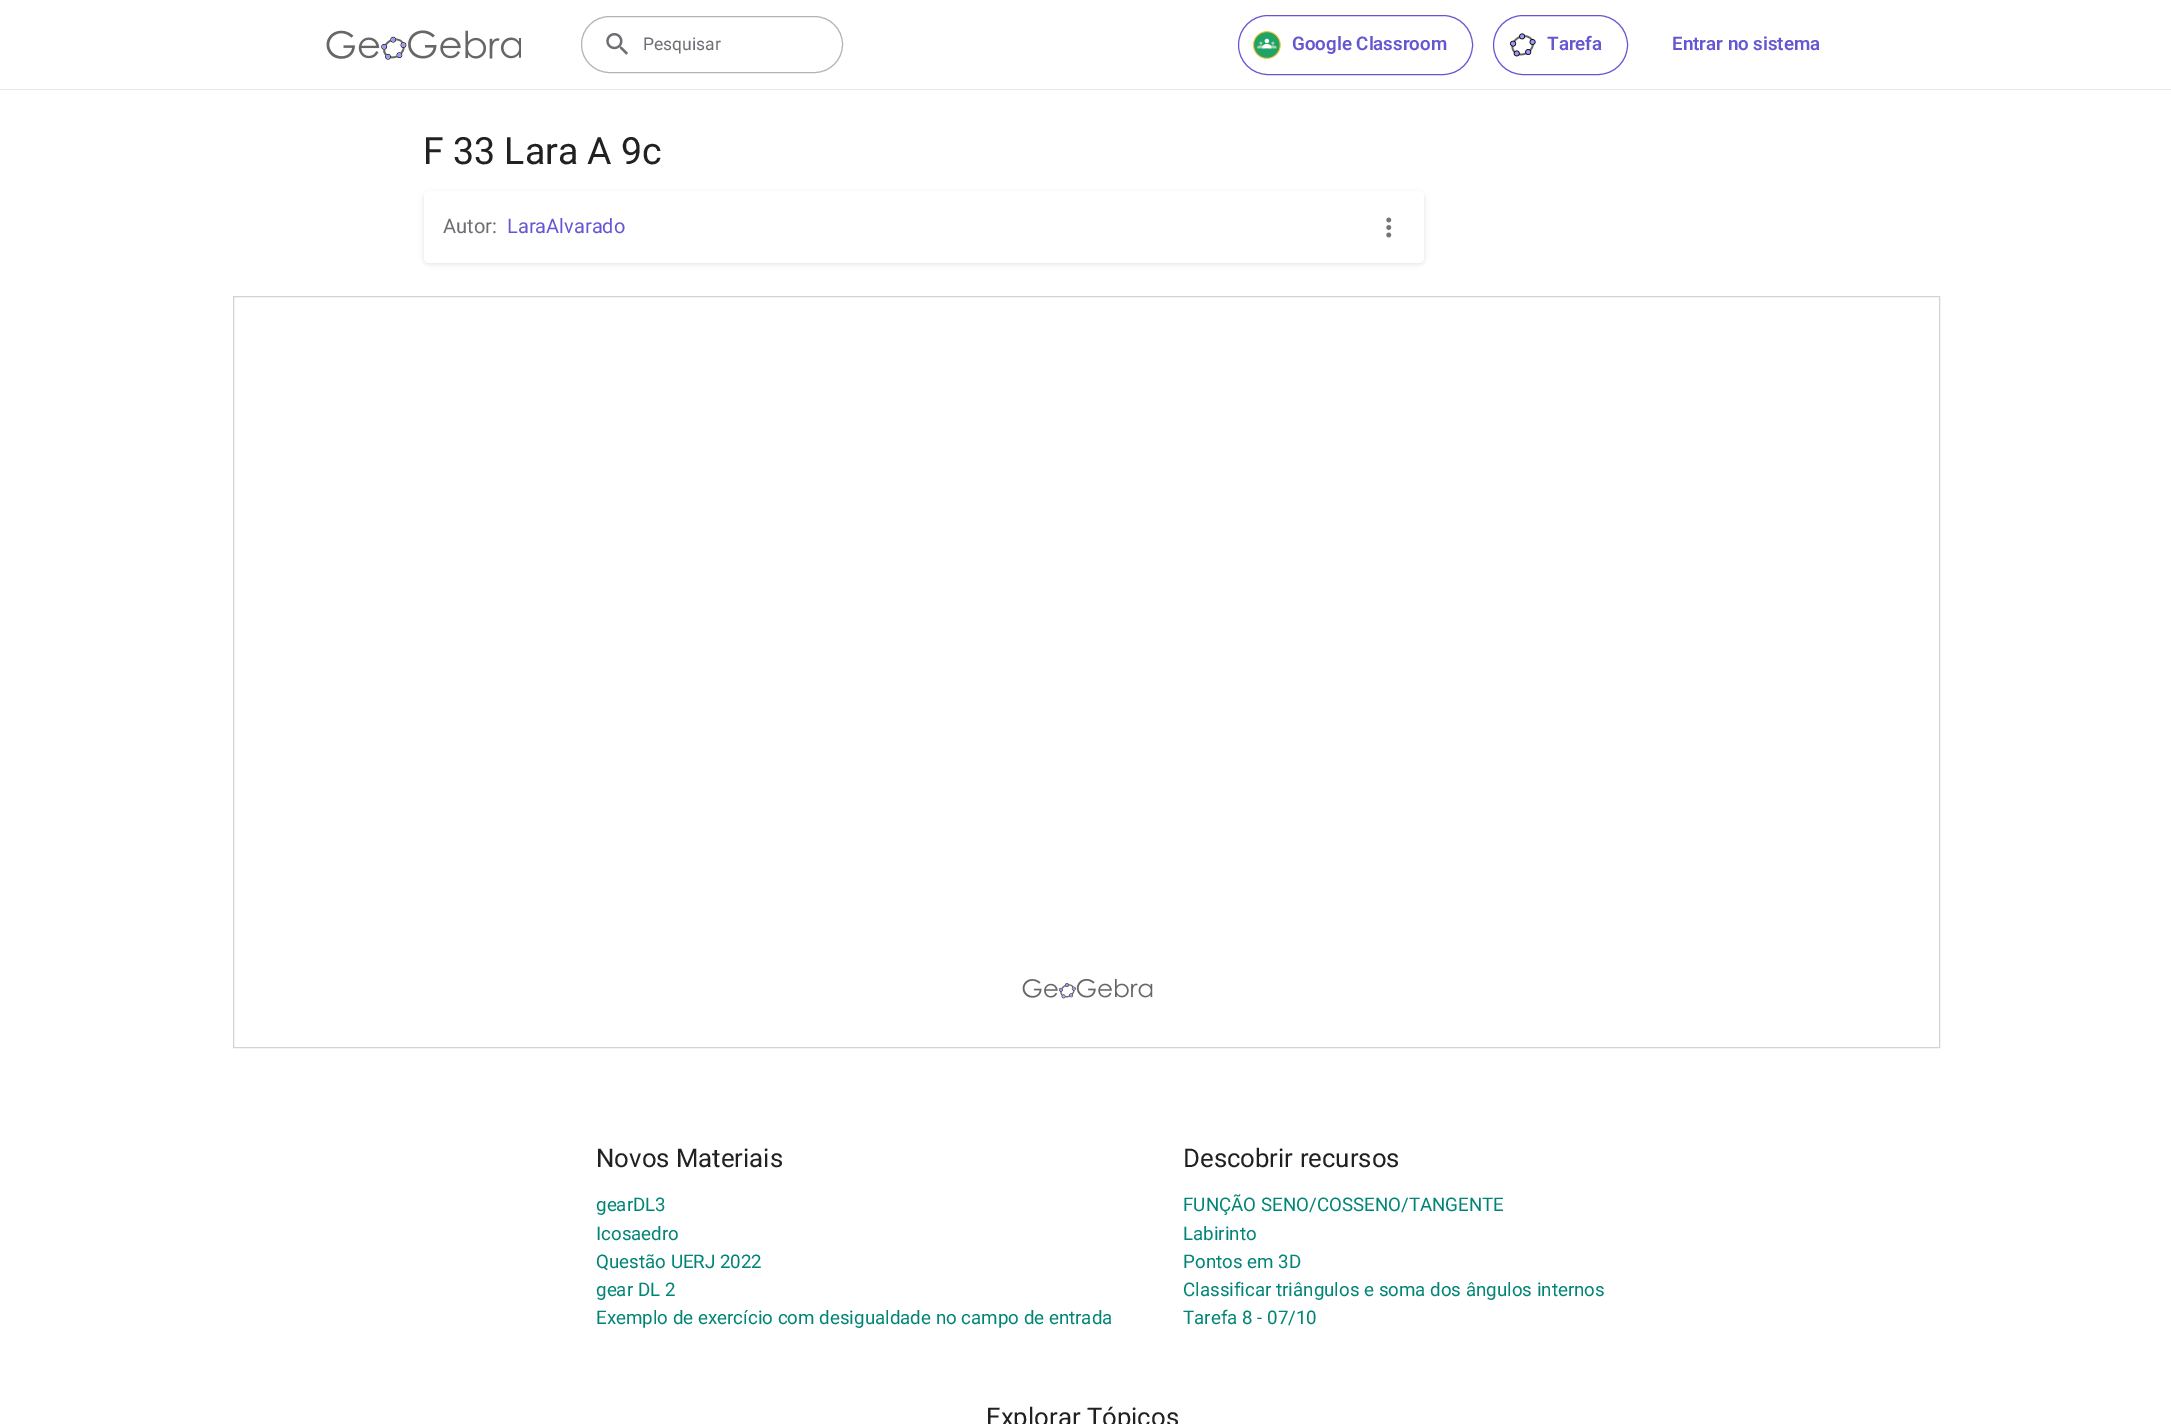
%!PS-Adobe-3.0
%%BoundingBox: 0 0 2171 1424
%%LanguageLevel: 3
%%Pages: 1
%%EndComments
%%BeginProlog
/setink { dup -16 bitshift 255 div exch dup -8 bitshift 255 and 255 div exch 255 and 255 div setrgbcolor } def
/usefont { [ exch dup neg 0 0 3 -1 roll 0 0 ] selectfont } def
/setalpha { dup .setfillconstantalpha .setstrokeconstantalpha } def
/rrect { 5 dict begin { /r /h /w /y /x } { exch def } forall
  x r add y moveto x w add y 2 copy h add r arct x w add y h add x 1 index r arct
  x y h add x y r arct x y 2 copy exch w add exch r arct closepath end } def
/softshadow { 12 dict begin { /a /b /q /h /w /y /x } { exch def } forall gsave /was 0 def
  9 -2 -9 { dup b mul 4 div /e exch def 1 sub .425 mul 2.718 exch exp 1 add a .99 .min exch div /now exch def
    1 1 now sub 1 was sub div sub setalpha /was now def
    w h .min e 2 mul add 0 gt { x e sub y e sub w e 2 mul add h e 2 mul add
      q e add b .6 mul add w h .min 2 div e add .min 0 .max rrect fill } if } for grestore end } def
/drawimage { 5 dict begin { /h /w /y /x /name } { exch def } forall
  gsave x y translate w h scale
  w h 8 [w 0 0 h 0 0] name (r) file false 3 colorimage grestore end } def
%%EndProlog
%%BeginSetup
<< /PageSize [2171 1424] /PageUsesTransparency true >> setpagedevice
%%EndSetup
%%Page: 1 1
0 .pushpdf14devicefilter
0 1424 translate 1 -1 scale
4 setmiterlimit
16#FFFFFF setink
0 0 2171 1424 rectfill
16#E6E6EB setink
0 89 2171 1 rectfill
(img1.raw) 326 30 195 30 drawimage
16#B4B3BA setink
581.5 16.5 261 56 28 rrect stroke
(img2.raw) 606 33 22 22 drawimage
/Roboto-Regular 17.5 usefont
16#6E6D73 setink
643 50 moveto (Pesquisar) show
16#6557D2 setink
1238.5 15.5 234 59 29.5 rrect stroke
(img3.raw) 1253 31 28 28 drawimage
/Roboto-SemiBold 18.75 usefont
1292 50 moveto (Google Classroom) show
1493.5 15.5 134 59 29.5 rrect stroke
(img4.raw) 1510 33 26 24 drawimage
1547 50 moveto (Tarefa) show
1672 50 moveto (Entrar no sistema) show
/Roboto-Regular 37.5 usefont
16#212121 setink
423 164 moveto (F 33 Lara A 9c) show
16#1C1C1F setink
424 193 1000 71 5 2.5 0.14 softshadow
16#FFFFFF setink
424 191 1000 72 5 rrect fill
/Roboto-Regular 20 usefont
16#6E6D73 setink
443 233 moveto (Autor:) show
16#6557D2 setink
507 233 moveto (LaraAlvarado) show
(img5.raw) 1386 217 6 21 drawimage
(img6.raw) 1022 978 131 21 drawimage
16#D3D3D3 setink
233.5 296.5 1706 751 rectstroke
/Roboto-Regular 25.75 usefont
16#212121 setink
596 1167 moveto (Novos Materiais) show
/Roboto-Regular 18.75 usefont
16#008475 setink
[
    [(gearDL3) 596 1211]
    [(Icosaedro) 596 1240]
    [(Questão UERJ 2022) 596 1268]
    [(gear DL 2) 596 1296]
    [(Exemplo de exercício com desigualdade no campo de entrada) 596 1324]
] { aload pop moveto show } forall
/Roboto-Regular 25.75 usefont
16#212121 setink
1183 1167 moveto (Descobrir recursos) show
/Roboto-Regular 18.75 usefont
16#008475 setink
[
    [(FUNÇÃO SENO/COSSENO/TANGENTE) 1183 1211]
    [(Labirinto) 1183 1240]
    [(Pontos em 3D) 1183 1268]
    [(Classificar triângulos e soma dos ângulos internos) 1183 1296]
    [(Tarefa 8 - 07/10) 1183 1324]
] { aload pop moveto show } forall
/Roboto-Regular 25.75 usefont
16#212121 setink
986 1426 moveto (Explorar Tópicos) show
.poppdf14devicefilter showpage
%%EOF
